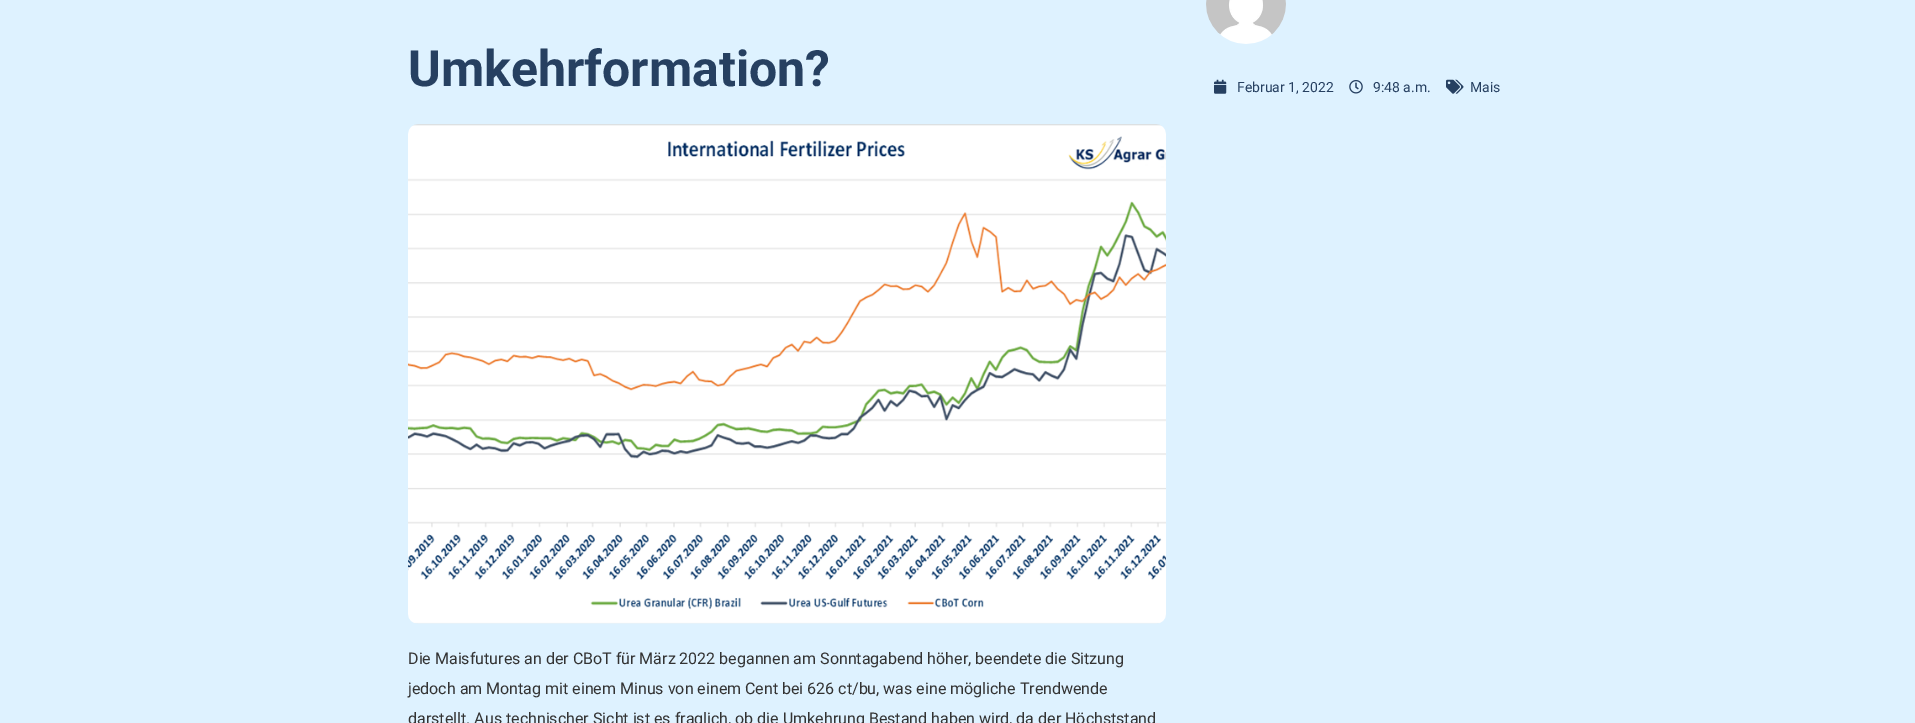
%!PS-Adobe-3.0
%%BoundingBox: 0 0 1915 723
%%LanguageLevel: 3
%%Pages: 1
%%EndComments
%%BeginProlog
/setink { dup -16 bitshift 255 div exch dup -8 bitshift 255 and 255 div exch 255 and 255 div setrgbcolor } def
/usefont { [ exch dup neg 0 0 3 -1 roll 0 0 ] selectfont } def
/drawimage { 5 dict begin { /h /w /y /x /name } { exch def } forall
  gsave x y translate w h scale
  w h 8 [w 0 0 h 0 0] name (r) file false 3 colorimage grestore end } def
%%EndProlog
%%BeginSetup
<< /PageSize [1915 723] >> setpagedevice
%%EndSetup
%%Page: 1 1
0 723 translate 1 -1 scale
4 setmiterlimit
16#DEF2FF setink
0 0 1915 723 rectfill
/Roboto-Bold 50 usefont
16#264061 setink
408 86 moveto (Umkehrformation?) show
(img1.raw) 408 124 758 500 drawimage
/Roboto-Regular 16 usefont
16#333333 setink
[
    [(Die Maisfutures an der CBoT für März 2022 begannen am Sonntagabend höher, beendete die Sitzung) 408 664]
    [(jedoch am Montag mit einem Minus von einem Cent bei 626 ct/bu, was eine mögliche Trendwende) 408 694]
    [(darstellt. Aus technischer Sicht ist es fraglich, ob die Umkehrung Bestand haben wird, da der Höchststand) 408 724]
] { aload pop moveto show } forall
(img2.raw) 1206 0 80 44 drawimage
(img3.raw) 1214 79 13 15 drawimage
/Roboto-Regular 14 usefont
16#264061 setink
1237 92 moveto (Februar 1, 2022) show
(img4.raw) 1349 80 14 14 drawimage
1373 92 moveto (9:48 a.m.) show
(img5.raw) 1446 79 18 15 drawimage
1470 92 moveto (Mais) show
showpage
%%EOF
